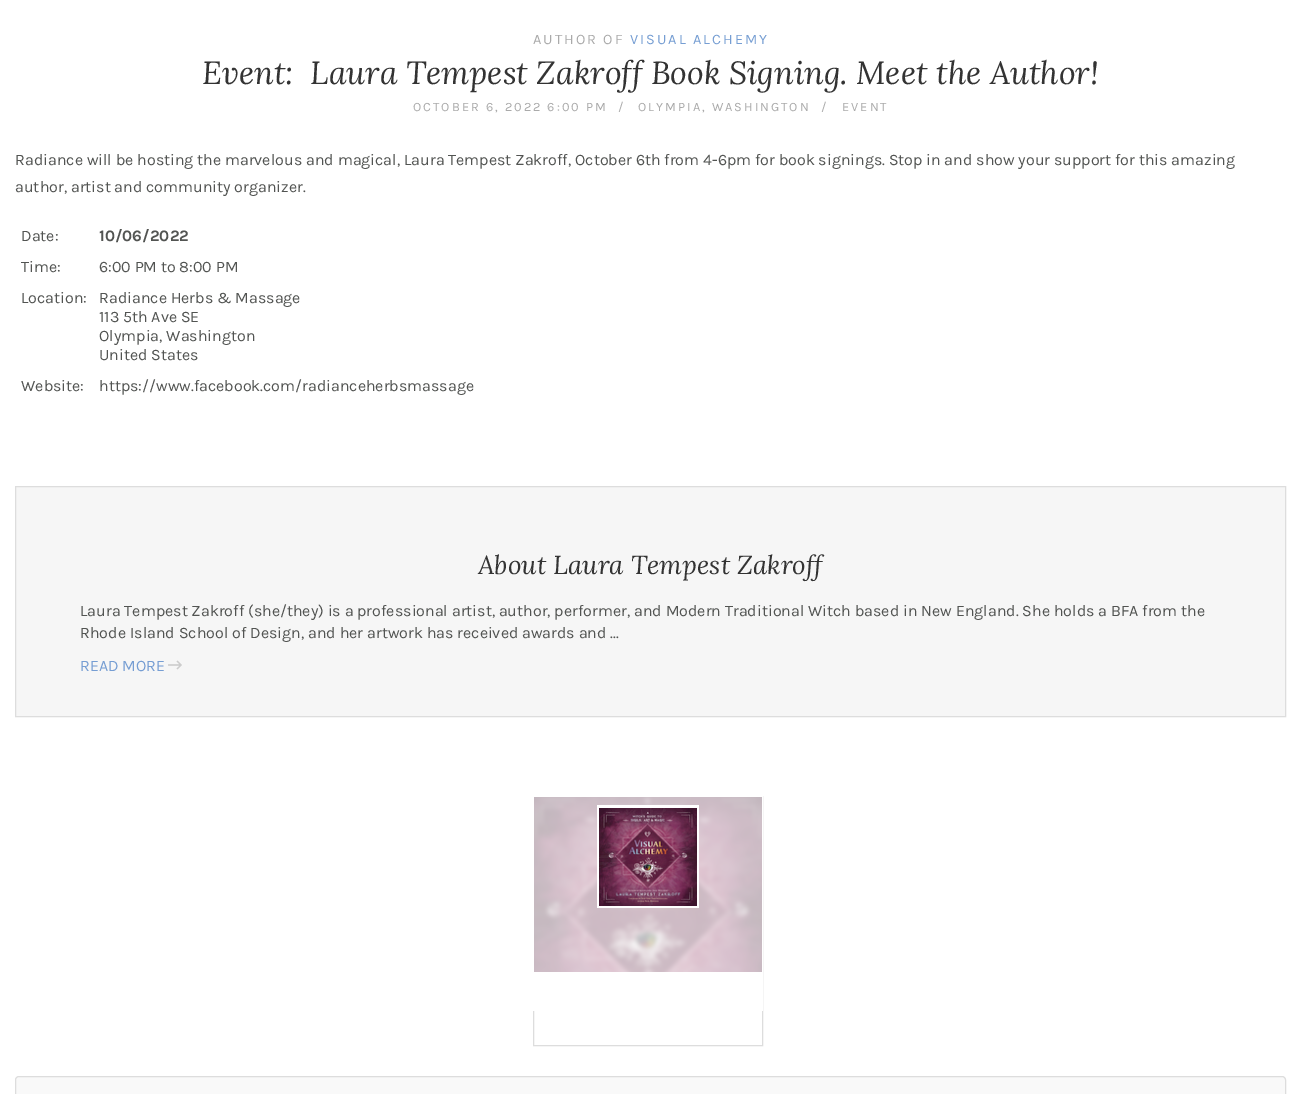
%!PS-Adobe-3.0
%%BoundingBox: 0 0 1301 1094
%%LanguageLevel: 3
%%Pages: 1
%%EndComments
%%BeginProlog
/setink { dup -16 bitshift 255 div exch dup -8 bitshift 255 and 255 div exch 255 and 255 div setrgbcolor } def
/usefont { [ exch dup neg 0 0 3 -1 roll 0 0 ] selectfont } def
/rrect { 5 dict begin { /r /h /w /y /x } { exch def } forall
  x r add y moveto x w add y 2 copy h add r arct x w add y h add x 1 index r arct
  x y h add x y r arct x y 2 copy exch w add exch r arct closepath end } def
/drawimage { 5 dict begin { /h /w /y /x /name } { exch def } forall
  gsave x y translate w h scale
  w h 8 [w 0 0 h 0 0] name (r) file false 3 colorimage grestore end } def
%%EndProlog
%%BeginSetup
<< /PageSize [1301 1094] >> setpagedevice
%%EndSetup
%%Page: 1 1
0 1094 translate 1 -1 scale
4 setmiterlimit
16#FFFFFF setink
0 0 1301 1094 rectfill
/Karla-Regular 14.5 usefont
16#AAAAAA setink
533 44 moveto 2 0 (AUTHOR OF) ashow
16#769ED3 setink
630 44 moveto 2 0 (VISUAL ALCHEMY) ashow
/Lora-Italic 32 usefont
16#333333 setink
202 84 moveto (Event:  Laura Tempest Zakroff Book Signing. Meet the Author!) show
/Karla-Regular 12.75 usefont
16#AAAAAA setink
413 111 moveto 2 0 (OCTOBER 6, 2022 6:00 PM) ashow
618 111 moveto 2 0 (/) ashow
638 111 moveto 2 0 (OLYMPIA, WASHINGTON) ashow
821 111 moveto 2 0 (/) ashow
842 111 moveto 2 0 (EVENT) ashow
/Karla-Regular 16 usefont
16#525452 setink
[
    [(Radiance will be hosting the marvelous and magical, Laura Tempest Zakroff, October 6th from 4-6pm for book signings. Stop in and show your support for this amazing) 15 165]
    [(author, artist and community organizer.) 15 192]
    [(Date:) 21 241]
] { aload pop moveto show } forall
/Karla-Bold 16 usefont
99 241 moveto (10/06/2022) show
/Karla-Regular 16 usefont
[
    [(Time:) 21 272]
    [(6:00 PM to 8:00 PM) 99 272]
    [(Location:) 21 303]
    [(Radiance Herbs & Massage) 99 303]
    [(113 5th Ave SE) 99 322]
    [(Olympia, Washington) 99 341]
    [(United States) 99 360]
    [(Website:) 21 391]
    [(https://www.facebook.com/radianceherbsmassage) 99 391]
] { aload pop moveto show } forall
16#F6F6F6 setink
15.5 486.5 moveto 1285.5 486.5 lineto 1285.5 716.5 lineto 15.5 716.5 lineto closepath gsave fill grestore
16#DDDDDD setink
stroke
/Lora-Italic 26 usefont
16#333333 setink
478 574 moveto (About Laura Tempest Zakroff) show
/Karla-Regular 16 usefont
16#525452 setink
80 616 moveto (Laura Tempest Zakroff \(she/they\) is a professional artist, author, performer, and Modern Traditional Witch based in New England. She holds a BFA from the) show
80 638 moveto (Rhode Island School of Design, and her artwork has received awards and ...) show
16#769ED3 setink
80 671 moveto (READ MORE) show
(img1.raw) 168 660 14 10 drawimage
16#DDDDDD setink
533.5 796.5 229 249 rectstroke
(img2.raw) 533 758 230 253 drawimage
(img3.raw) 597 805 102 103 drawimage
16#F9F9F9 setink
15.5 1076.5 1270 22 3.5 rrect gsave fill grestore
16#DDDDDD setink
stroke
showpage
%%EOF
